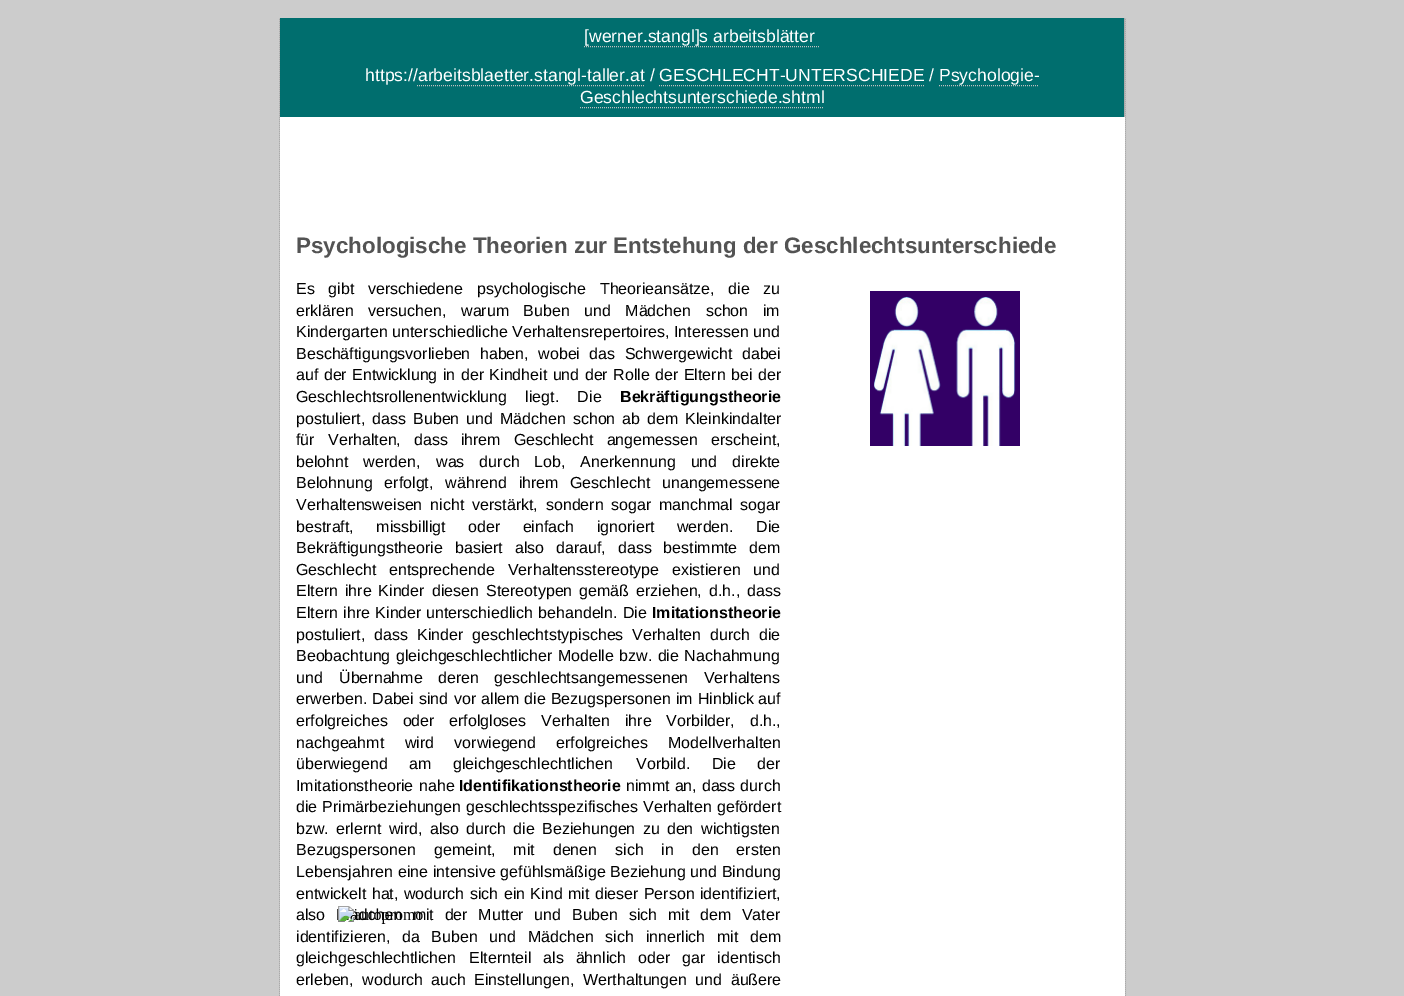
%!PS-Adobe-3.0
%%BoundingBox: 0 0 1404 996
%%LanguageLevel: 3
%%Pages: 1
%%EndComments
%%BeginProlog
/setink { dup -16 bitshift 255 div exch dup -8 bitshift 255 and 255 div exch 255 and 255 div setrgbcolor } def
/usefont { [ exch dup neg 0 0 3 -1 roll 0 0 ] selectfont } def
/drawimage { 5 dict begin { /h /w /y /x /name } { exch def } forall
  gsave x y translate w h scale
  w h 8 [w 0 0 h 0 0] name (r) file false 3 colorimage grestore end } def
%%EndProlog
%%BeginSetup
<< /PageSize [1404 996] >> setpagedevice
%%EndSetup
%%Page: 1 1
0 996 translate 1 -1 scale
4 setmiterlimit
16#CCCCCC setink
0 0 1404 996 rectfill
16#AAAAAA setink
279 18 847 978 rectfill
16#C0C0C0 setink
[1 1] 0 setdash
1125.5 18 moveto 1125.5 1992 lineto stroke
279.5 18 moveto 279.5 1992 lineto stroke
16#006E6E setink
280 18 844 99 rectfill
/LiberationSans-Regular 17.6 usefont
16#FFFFFF setink
584 42 moveto ([werner.stangl]s arbeitsblätter) show
16#C0C0C0 setink
584 46.5 moveto 820 46.5 lineto stroke
16#FFFFFF setink
365 81 moveto (https://arbeitsblaetter.stangl-taller.at / GESCHLECHT-UNTERSCHIEDE / Psychologie-) show
16#C0C0C0 setink
417 85.5 moveto 644 85.5 lineto stroke
659 85.5 moveto 924 85.5 lineto stroke
16#FFFFFF setink
580 103 moveto (Geschlechtsunterschiede.shtml) show
16#C0C0C0 setink
939 85.5 moveto 1039 85.5 lineto stroke
580 107.5 moveto 824 107.5 lineto stroke
16#FFFFFF setink
280 117 845 879 rectfill
/LiberationSans-Bold 22.4 usefont
16#535353 setink
296 253 moveto (Psychologische Theorien zur Entstehung der Geschlechtsunterschiede) show
/LiberationSans-Regular 16 usefont
16#000000 setink
296 294 moveto 9.25 0 32 (Es gibt verschiedene psychologische Theorieansätze, die zu) widthshow
296 316 moveto 10 0 32 (erklären versuchen, warum Buben und Mädchen schon im) widthshow
296 337 moveto (Kindergarten unterschiedliche Verhaltensrepertoires, Interessen und) show
296 359 moveto 5 0 32 (Beschäftigungsvorlieben haben, wobei das Schwergewicht dabei) widthshow
296 380 moveto 1 0 32 (auf der) widthshow
352 380 moveto 1 0 32 (Entwicklung in der Kindheit und der Rolle der Eltern bei der) widthshow
296 402 moveto 14 0 32 (Geschlechtsrollenentwicklung liegt. Die) widthshow
/LiberationSans-Bold 16 usefont
620 402 moveto (Bekräftigungstheorie) show
/LiberationSans-Regular 16 usefont
296 424 moveto 2.5 0 32 (postuliert, dass Buben und Mädchen schon ab dem Kleinkindalter) widthshow
296 445 moveto (für) show
328 445 moveto 8.5 0 32 (Verhalten, dass ihrem Geschlecht angemessen erscheint,) widthshow
296 467 moveto 10.5 0 32 (belohnt werden,) widthshow
436 467 moveto 10.5 0 32 (was durch Lob, Anerkennung und direkte) widthshow
296 488 moveto 7.5 0 32 (Belohnung erfolgt, während ihrem) widthshow
570 488 moveto 7.5 0 32 (Geschlecht unangemessene) widthshow
296 510 moveto 3.5 0 32 (Verhaltensweisen nicht verstärkt, sondern sogar) widthshow
659 510 moveto 3 0 32 (manchmal sogar) widthshow
296 532 moveto 18 0 32 (bestraft, missbilligt oder einfach ignoriert werden. Die) widthshow
296 553 moveto 7.5 0 32 (Bekräftigungstheorie basiert also darauf, dass bestimmte dem) widthshow
296 575 moveto (Geschlecht) show
389 575 moveto 8.5 0 32 (entsprechende Verhaltensstereotype existieren und) widthshow
296 596 moveto 2.5 0 32 (Eltern ihre Kinder) widthshow
432 596 moveto 2.5 0 32 (diesen Stereotypen gemäß erziehen, d.h., dass) widthshow
296 618 moveto 1 0 32 (Eltern ihre Kinder) widthshow
426 618 moveto 1 0 32 (unterschiedlich behandeln. Die) widthshow
/LiberationSans-Bold 16 usefont
652 618 moveto (Imitationstheorie) show
/LiberationSans-Regular 16 usefont
296 640 moveto 4.5 0 32 (postuliert, dass Kinder geschlechtstypisches Verhalten durch die) widthshow
296 661 moveto 1 0 32 (Beobachtung gleichgeschlechtlicher Modelle bzw. die Nachahmung) widthshow
296 683 moveto (und) show
339 683 moveto 11 0 32 (Übernahme deren geschlechtsangemessenen Verhaltens) widthshow
296 704 moveto 0.5 0 32 (erwerben. Dabei sind) widthshow
454 704 moveto 0.5 0 32 (vor allem die Bezugspersonen im Hinblick auf) widthshow
296 726 moveto 10.5 0 32 (erfolgreiches oder) widthshow
449 726 moveto 10.5 0 32 (erfolgloses Verhalten ihre Vorbilder, d.h.,) widthshow
296 748 moveto 16 0 32 (nachgeahmt wird vorwiegend) widthshow
556 748 moveto 16 0 32 (erfolgreiches Modellverhalten) widthshow
296 769 moveto 17 0 32 (überwiegend am gleichgeschlechtlichen) widthshow
636 769 moveto 17 0 32 (Vorbild. Die der) widthshow
296 791 moveto 1 0 32 (Imitationstheorie nahe) widthshow
/LiberationSans-Bold 16 usefont
459 791 moveto (Identifikationstheorie) show
/LiberationSans-Regular 16 usefont
626 791 moveto 0.5 0 32 (nimmt an, dass durch) widthshow
296 812 moveto 0.5 0 32 (die Primärbeziehungen geschlechtsspezifisches) widthshow
643 812 moveto 1 0 32 (Verhalten gefördert) widthshow
296 834 moveto 2.75 0 32 (bzw. erlernt wird, also durch die Beziehungen zu den) widthshow
701 834 moveto (wichtigsten) show
296 855 moveto 13.5 0 32 (Bezugspersonen gemeint, mit denen sich in den ersten) widthshow
296 877 moveto 0.25 0 32 (Lebensjahren eine intensive gefühlsmäßige Beziehung und Bindung) widthshow
296 899 moveto 1 0 32 (entwickelt hat, wodurch sich ein Kind mit dieser Person identifiziert,) widthshow
296 920 moveto 6.25 0 32 (also Mädchen mit der Mutter und Buben sich mit dem Vater) widthshow
296 942 moveto (identifizieren,) show
402 942 moveto 7.25 0 32 (da Buben und Mädchen sich innerlich mit dem) widthshow
296 963 moveto (gleichgeschlechtlichen) show
469 963 moveto 7.5 0 32 (Elternteil als ähnlich oder gar identisch) widthshow
296 985 moveto 4 0 32 (erleben, wodurch auch) widthshow
474 985 moveto 4 0 32 (Einstellungen, Werthaltungen und äußere) widthshow
(img1.raw) 870 291 150 155 drawimage
(img2.raw) 338 906 85 18 drawimage
showpage
%%EOF
